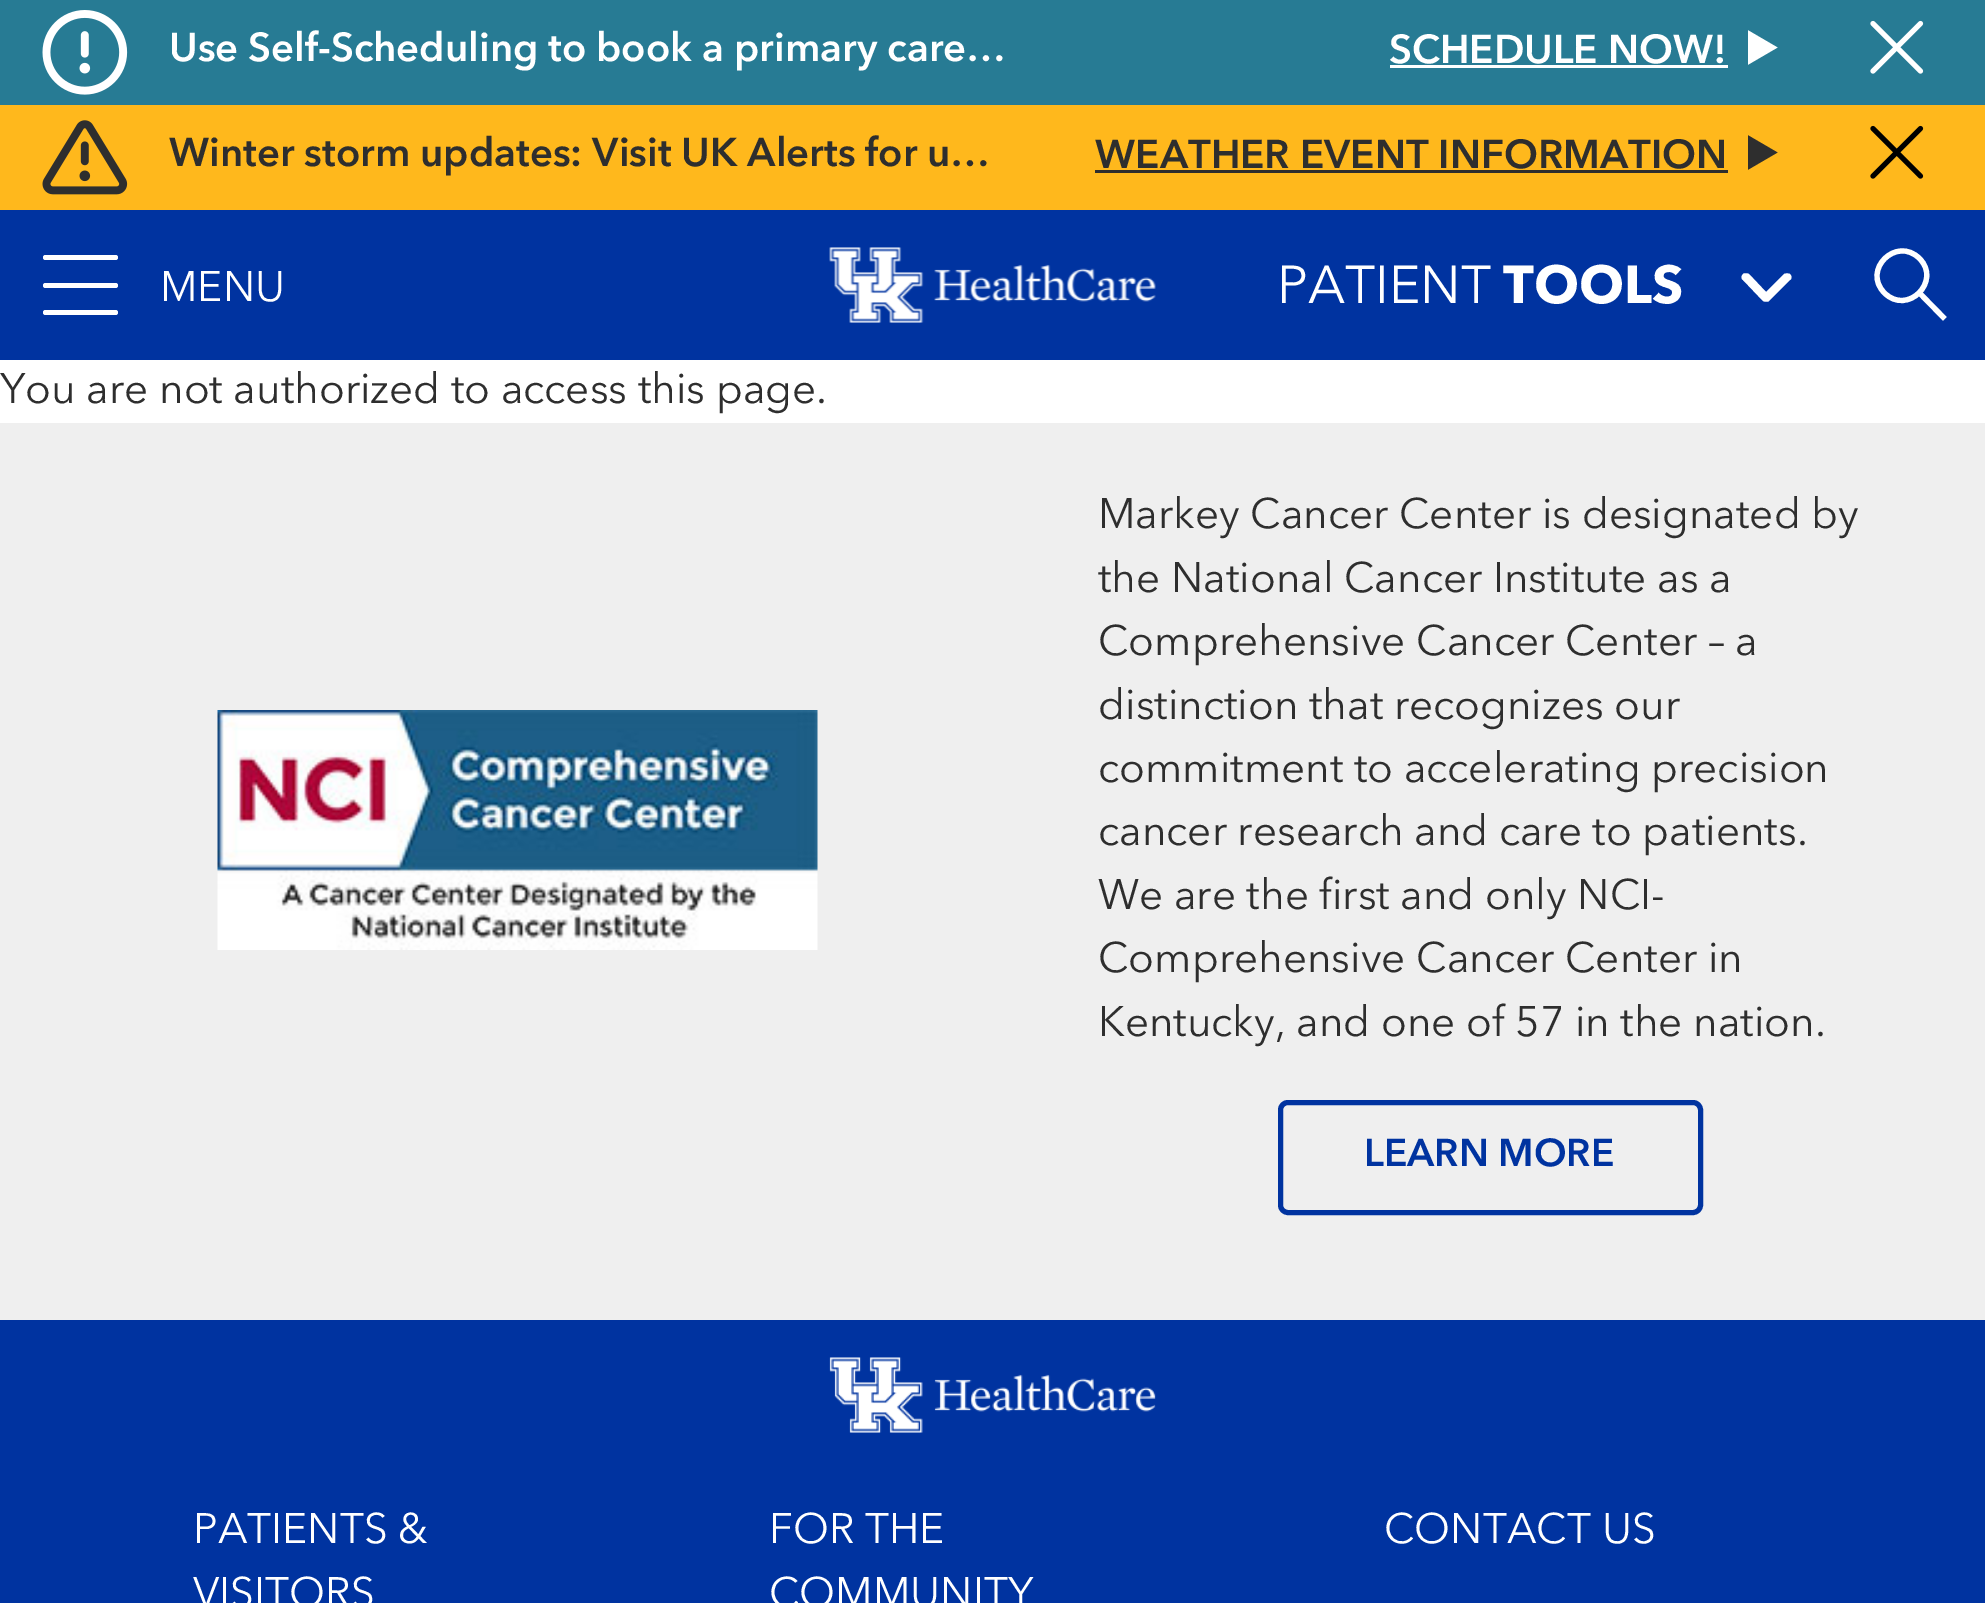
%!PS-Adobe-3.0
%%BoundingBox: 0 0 1985 1603
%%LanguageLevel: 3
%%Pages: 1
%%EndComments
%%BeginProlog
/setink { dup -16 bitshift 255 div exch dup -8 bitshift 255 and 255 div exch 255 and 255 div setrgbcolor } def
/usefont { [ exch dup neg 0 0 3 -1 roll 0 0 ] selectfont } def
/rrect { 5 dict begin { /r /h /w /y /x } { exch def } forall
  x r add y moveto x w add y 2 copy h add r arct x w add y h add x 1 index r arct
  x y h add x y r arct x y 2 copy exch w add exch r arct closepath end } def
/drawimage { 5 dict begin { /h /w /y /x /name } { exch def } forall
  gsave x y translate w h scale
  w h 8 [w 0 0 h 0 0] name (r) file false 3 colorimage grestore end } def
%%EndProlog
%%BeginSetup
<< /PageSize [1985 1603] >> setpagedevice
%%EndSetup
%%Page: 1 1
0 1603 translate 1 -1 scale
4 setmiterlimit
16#FFFFFF setink
0 0 1985 1603 rectfill
16#277B94 setink
0 0 1985 105 rectfill
(img1.raw) 42 10 86 85 drawimage
/AvenirNext-SemiBold 40 usefont
16#FFFFFF setink
169 61 moveto (Use Self-Scheduling to book a primary care…) show
1389 63 moveto (SCHEDULE NOW!) show
1390 65 338 3 rectfill
gsave
1748 30 30 35 rectclip
1777.5 47.5 moveto 1747.5 65 lineto 1747.5 30 lineto closepath fill
grestore
(img2.raw) 1870 20 54 54 drawimage
16#FFB81C setink
0 105 1985 105 rectfill
(img3.raw) 42 120 86 75 drawimage
16#2E2E2E setink
169 166 moveto (Winter storm updates: Visit UK Alerts for u…) show
1095 168 moveto (WEATHER EVENT INFORMATION) show
1095 170 633 3 rectfill
gsave
1748 135 30 35 rectclip
1777.5 152.5 moveto 1747.5 170 lineto 1747.5 135 lineto closepath fill
grestore
(img4.raw) 1870 125 54 54 drawimage
16#0033A0 setink
0 210 1985 150 rectfill
16#FFFFFF setink
43 255 75 5 2.5 rrect fill
43 283 75 5 2.5 rrect fill
43 310 75 5 2.5 rrect fill
/AvenirNext-Regular 42.3 usefont
160 301 moveto (MENU) show
(img5.raw) 829 247 327 76 drawimage
/AvenirNext-Regular 53 usefont
1277 303 moveto (PATIENT) show
/AvenirNext-Bold 53 usefont
1503 303 moveto (TOOLS) show
1763 301 moveto 1765 302 1768 302 1769 301 curveto 1790 280 lineto 1792 279 1792 276 1790 274 curveto 1788 273 1786 273 1784 274 curveto 1766 292 lineto 1749 274 lineto 1747 273 1744 273 1743 274 curveto 1741 276 1741 279 1743 280 curveto closepath fill
5.2 setlinewidth
1919.5 258.5 moveto 1942 281 1907.5 316 1884.5 293 curveto 1861.5 270 1896.5 235.5 1919.5 258.5 curveto closepath stroke
2 setlinecap
1919.5 293 moveto 1943 317 lineto stroke
/AvenirNext-Regular 42.3 usefont
16#2E2E2E setink
0 403 moveto (You are not authorized to access this page.) show
16#EFEFEF setink
0 423 1985 897 rectfill
(img6.raw) 217 710 601 240 drawimage
16#2E2E2E setink
[
    [(Markey Cancer Center is designated by) 1098 528]
    [(the National Cancer Institute as a) 1098 592]
    [(Comprehensive Cancer Center – a) 1098 655]
    [(distinction that recognizes our) 1098 719]
    [(commitment to accelerating precision) 1098 782]
    [(cancer research and care to patients.) 1098 845]
    [(We are the first and only NCI-) 1098 909]
    [(Comprehensive Cancer Center in) 1098 972]
    [(Kentucky, and one of 57 in the nation.) 1098 1036]
] { aload pop moveto show } forall
16#0033A0 setink
5 setlinewidth
0 setlinecap
1280.5 1102.5 420 110 7.5 rrect stroke
/AvenirNext-SemiBold 38.5 usefont
1364 1166 moveto (LEARN MORE) show
0 1320 1985 283 rectfill
(img7.raw) 829 1357 327 76 drawimage
/AvenirNext-Regular 42.3 usefont
16#FFFFFF setink
[
    [(PATIENTS &) 193 1543]
    [(VISITORS) 193 1607]
    [(FOR THE) 769 1543]
    [(COMMUNITY) 769 1607]
    [(CONTACT US) 1384 1543]
] { aload pop moveto show } forall
showpage
%%EOF
